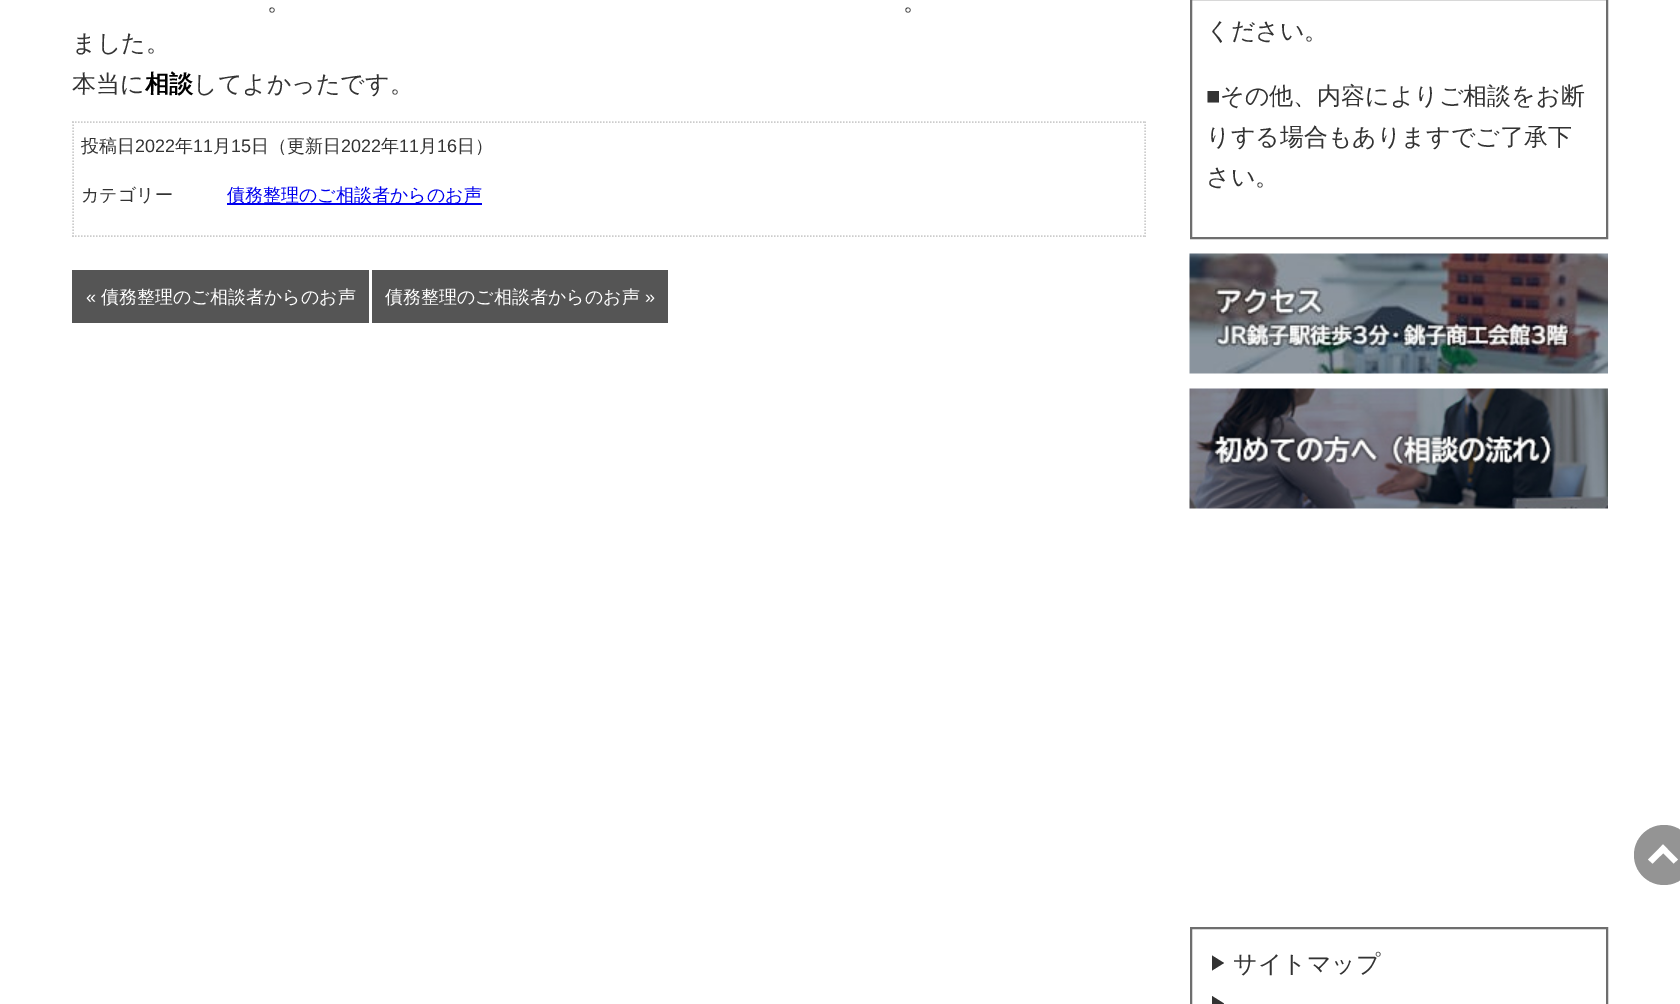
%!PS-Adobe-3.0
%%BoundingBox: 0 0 1680 1004
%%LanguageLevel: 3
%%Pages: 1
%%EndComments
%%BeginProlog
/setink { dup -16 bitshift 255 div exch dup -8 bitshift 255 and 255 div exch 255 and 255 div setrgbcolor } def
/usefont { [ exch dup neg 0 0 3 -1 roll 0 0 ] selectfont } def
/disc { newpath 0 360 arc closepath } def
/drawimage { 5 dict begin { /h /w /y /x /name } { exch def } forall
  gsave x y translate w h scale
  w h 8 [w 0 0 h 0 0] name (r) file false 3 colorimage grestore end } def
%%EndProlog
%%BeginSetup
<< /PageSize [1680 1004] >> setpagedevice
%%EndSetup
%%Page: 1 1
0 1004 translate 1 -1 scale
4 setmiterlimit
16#FFFFFF setink
0 0 1680 1004 rectfill
/WenQuanYiZenHei-Medium 24 usefont
16#333333 setink
[
    [(。) 267 10]
    [(。) 903 10]
    [(ました。) 72 51]
    [(本当に) 72 92]
] { aload pop moveto show } forall
/WenQuanYiZenHei-Bold 24 usefont
16#000000 setink
145 92 moveto (相談) show
/WenQuanYiZenHei-Medium 24 usefont
16#333333 setink
193 92 moveto (してよかったです。) show
16#CCCCCC setink
1.5 setlinewidth
[1.5 1.5] 0 setdash
72 122 moveto 1146 122 lineto stroke
1145 121.5 moveto 1145 237 lineto stroke
72 236 moveto 1146 236 lineto stroke
73 121.5 moveto 73 237 lineto stroke
/WenQuanYiZenHei-Medium 18 usefont
16#333333 setink
81 152 moveto (投稿日) show
/LiberationSans-Regular 18 usefont
135 152 moveto (2022) show
/WenQuanYiZenHei-Medium 18 usefont
175 152 moveto (年) show
/LiberationSans-Regular 18 usefont
193 152 moveto (11) show
/WenQuanYiZenHei-Medium 18 usefont
213 152 moveto (月) show
/LiberationSans-Regular 18 usefont
231 152 moveto (15) show
/WenQuanYiZenHei-Medium 18 usefont
251 152 moveto (日（更新日) show
/LiberationSans-Regular 18 usefont
341 152 moveto (2022) show
/WenQuanYiZenHei-Medium 18 usefont
381 152 moveto (年) show
/LiberationSans-Regular 18 usefont
399 152 moveto (11) show
/WenQuanYiZenHei-Medium 18 usefont
419 152 moveto (月) show
/LiberationSans-Regular 18 usefont
437 152 moveto (16) show
/WenQuanYiZenHei-Medium 18 usefont
457 152 moveto (日）) show
81 201 moveto (カテゴリー) show
16#0000EE setink
227 203 255 2 rectfill
227 201 moveto (債務整理のご相談者からのお声) show
16#555555 setink
72 270 297 53 rectfill
/LiberationSans-Regular 18 usefont
16#FFFFFF setink
86 303 moveto («) show
/WenQuanYiZenHei-Medium 18 usefont
101 303 moveto (債務整理のご相談者からのお声) show
16#555555 setink
372 270 296 53 rectfill
16#FFFFFF setink
385 303 moveto (債務整理のご相談者からのお声) show
/LiberationSans-Regular 18 usefont
645 303 moveto (») show
16#6E6E6E setink
2 setlinewidth
[] 0 setdash
1191 -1 416 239 rectstroke
/WenQuanYiZenHei-Medium 24 usefont
16#333333 setink
1206 39 moveto (ください。) show
/LiberationSans-Regular 24 usefont
1206 104 moveto (■) show
/WenQuanYiZenHei-Medium 24 usefont
[
    [(その他、内容によりご相談をお断) 1220 104]
    [(りする場合もありますでご了承下) 1206 145]
    [(さい。) 1206 185]
] { aload pop moveto show } forall
(img1.raw) 1189 253 419 121 drawimage
(img2.raw) 1189 388 419 121 drawimage
16#6E6E6E setink
1191 928 416 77 rectstroke
16#333333 setink
1212 970.5 moveto 1212 955.5 lineto 1224 963 lineto closepath 1212 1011 moveto 1212 996 lineto 1224 1003.5 lineto closepath fill
1233 972 moveto (サイトマップ) show
16#949494 setink
1664 855 30 disc fill
16#FFFFFF setink
1663 844.5 moveto 1678 859.5 lineto 1673.5 863.5 lineto 1659 849 lineto closepath fill
1663 844.5 moveto 1667.5 849 lineto 1652.5 863.5 lineto 1648 859.5 lineto closepath fill
showpage
%%EOF
